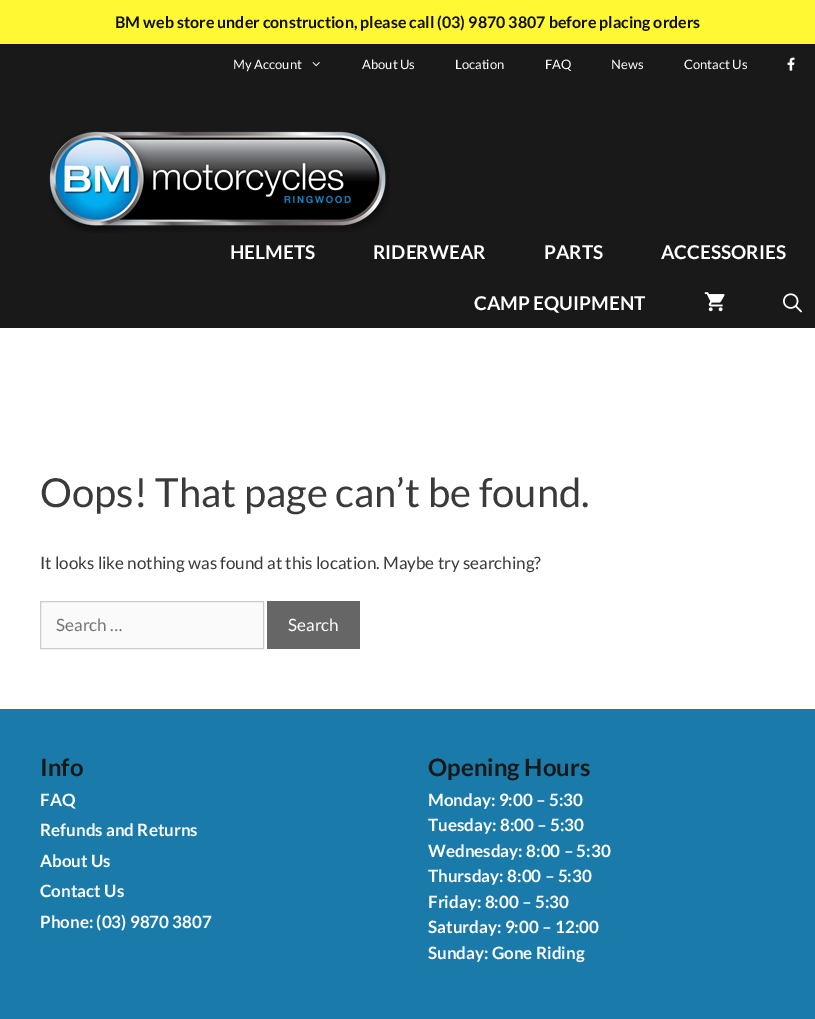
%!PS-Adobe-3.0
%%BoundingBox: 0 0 815 1019
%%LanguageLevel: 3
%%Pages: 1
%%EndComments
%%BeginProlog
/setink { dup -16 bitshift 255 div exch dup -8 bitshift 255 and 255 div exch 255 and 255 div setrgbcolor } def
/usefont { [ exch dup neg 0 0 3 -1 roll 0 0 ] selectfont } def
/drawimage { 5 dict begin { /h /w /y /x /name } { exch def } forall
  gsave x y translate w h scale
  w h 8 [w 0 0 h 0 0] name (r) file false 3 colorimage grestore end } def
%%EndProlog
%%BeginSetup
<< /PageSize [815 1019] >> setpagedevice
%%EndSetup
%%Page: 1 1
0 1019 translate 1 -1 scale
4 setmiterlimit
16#FFFFFF setink
0 0 815 1019 rectfill
16#FFF833 setink
0 0 815 44 rectfill
/Lato-Bold 16 usefont
16#0F0F0F setink
115 28 moveto (BM web store under construction, please call \(03\) 9870 3807 before placing orders) show
16#1A1919 setink
0 44 815 284 rectfill
/Lato-Regular 13 usefont
16#FFFFFF setink
233 69 moveto (My Account) show
(img1.raw) 312 62 8 5 drawimage
[
    [(About Us) 362 69]
    [(Location) 455 69]
    [(FAQ) 545 69]
    [(News) 611 69]
    [(Contact Us) 684 69]
] { aload pop moveto show } forall
(img2.raw) 787 57 8 14 drawimage
(img3.raw) 49 131 341 102 drawimage
/Lato-Bold 19 usefont
[
    [(HELMETS) 230 259]
    [(RIDERWEAR) 373 259]
    [(PARTS) 544 259]
    [(ACCESSORIES) 661 259]
    [(CAMP EQUIPMENT) 474 310]
] { aload pop moveto show } forall
(img4.raw) 704 292 21 20 drawimage
(img5.raw) 783 293 19 20 drawimage
/Lato-Regular 40 usefont
16#3A3A3A setink
40 507 moveto (Oops! That page can’t be found.) show
/Lato-Regular 17 usefont
40 569 moveto (It looks like nothing was found at this location. Maybe try searching?) show
16#FAFAFA setink
40.5 601.5 moveto 263.5 601.5 lineto 263.5 648.5 lineto 40.5 648.5 lineto closepath gsave fill grestore
16#CCCCCC setink
stroke
16#757575 setink
56 631 moveto (Search …) show
16#666666 setink
267 601 93 48 rectfill
16#FFFFFF setink
288 631 moveto (Search) show
16#1A7BAB setink
0 709 815 310 rectfill
/Lato-Bold 24 usefont
16#1A1919 setink
40 776 moveto (Info) show
/Lato-Bold 17 usefont
16#FFFFFF setink
[
    [(FAQ) 40 806]
    [(Refunds and Returns) 40 836]
    [(About Us) 40 867]
    [(Contact Us) 40 897]
    [(Phone: \(03\) 9870 3807) 40 928]
] { aload pop moveto show } forall
/Lato-Bold 24 usefont
16#1A1919 setink
428 776 moveto (Opening Hours) show
/Lato-Bold 17 usefont
16#FFFFFF setink
[
    [(Monday: 9:00 – 5:30) 428 806]
    [(Tuesday: 8:00 – 5:30) 428 831]
    [(Wednesday: 8:00 – 5:30) 428 857]
    [(Thursday: 8:00 – 5:30) 428 882]
    [(Friday: 8:00 – 5:30) 428 908]
    [(Saturday: 9:00 – 12:00) 428 933]
    [(Sunday: Gone Riding) 428 959]
] { aload pop moveto show } forall
showpage
%%EOF
